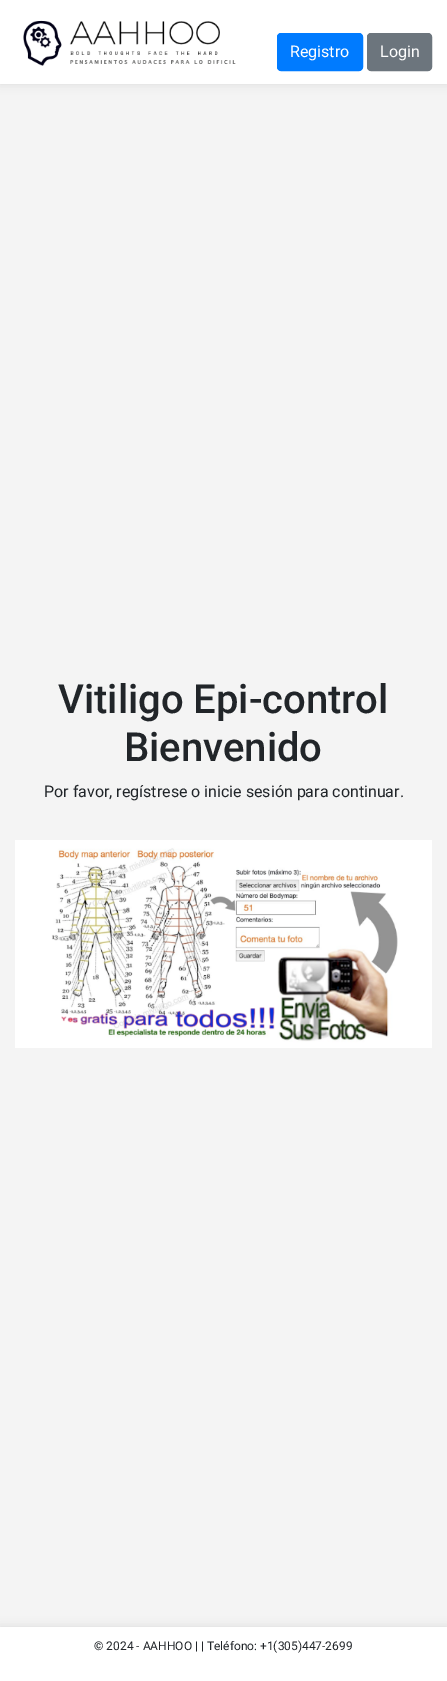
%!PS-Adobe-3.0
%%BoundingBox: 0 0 447 1681
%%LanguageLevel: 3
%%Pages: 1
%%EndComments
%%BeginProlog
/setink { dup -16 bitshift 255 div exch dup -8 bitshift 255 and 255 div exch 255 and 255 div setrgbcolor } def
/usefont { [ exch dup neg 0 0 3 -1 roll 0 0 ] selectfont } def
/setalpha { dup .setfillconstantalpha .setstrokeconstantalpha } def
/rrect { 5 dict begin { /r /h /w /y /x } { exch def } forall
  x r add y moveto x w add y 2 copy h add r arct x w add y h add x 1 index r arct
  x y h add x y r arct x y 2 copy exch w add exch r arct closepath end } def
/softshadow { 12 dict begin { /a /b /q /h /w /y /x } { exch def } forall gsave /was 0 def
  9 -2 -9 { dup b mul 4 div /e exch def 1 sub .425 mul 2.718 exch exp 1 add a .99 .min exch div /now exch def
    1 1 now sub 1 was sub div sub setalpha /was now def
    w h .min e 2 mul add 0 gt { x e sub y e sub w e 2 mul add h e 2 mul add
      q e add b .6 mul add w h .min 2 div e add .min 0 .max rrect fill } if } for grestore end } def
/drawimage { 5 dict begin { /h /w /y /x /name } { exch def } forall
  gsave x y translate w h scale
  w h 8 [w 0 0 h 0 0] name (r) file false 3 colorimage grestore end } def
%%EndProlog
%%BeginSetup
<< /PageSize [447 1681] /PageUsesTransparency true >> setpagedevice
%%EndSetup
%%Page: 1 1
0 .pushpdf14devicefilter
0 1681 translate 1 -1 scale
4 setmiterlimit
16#F4F4F4 setink
0 0 447 1681 rectfill
16#000000 setink
0 0 447 84 0 5 0.1 softshadow
16#FFFFFF setink
0 0 447 84 rectfill
(img1.raw) 23 20 213 46 drawimage
16#007BFF setink
277.5 33.5 85 37 3.5 rrect gsave fill grestore
stroke
/Roboto-Regular 16 usefont
16#FFFFFF setink
290 57 moveto (Registro) show
16#6C757D setink
367.5 33.5 64 37 3.5 rrect gsave fill grestore
stroke
16#FFFFFF setink
380 57 moveto (Login) show
/Roboto-Medium 40 usefont
16#212529 setink
58 713 moveto (Vitiligo Epi-control) show
124 761 moveto (Bienvenido) show
/Roboto-Regular 16 usefont
44 797 moveto (Por favor, regístrese o inicie sesión para continuar.) show
(img2.raw) 15 840 417 208 drawimage
16#000000 setink
0 1627 447 54 0 5 0.1 softshadow
16#FFFFFF setink
0 1627 447 54 rectfill
/Roboto-Regular 12 usefont
16#212529 setink
94 1650 moveto (© 2024 - AAHHOO | | Teléfono: +1\(305\)447-2699) show
.poppdf14devicefilter showpage
%%EOF
